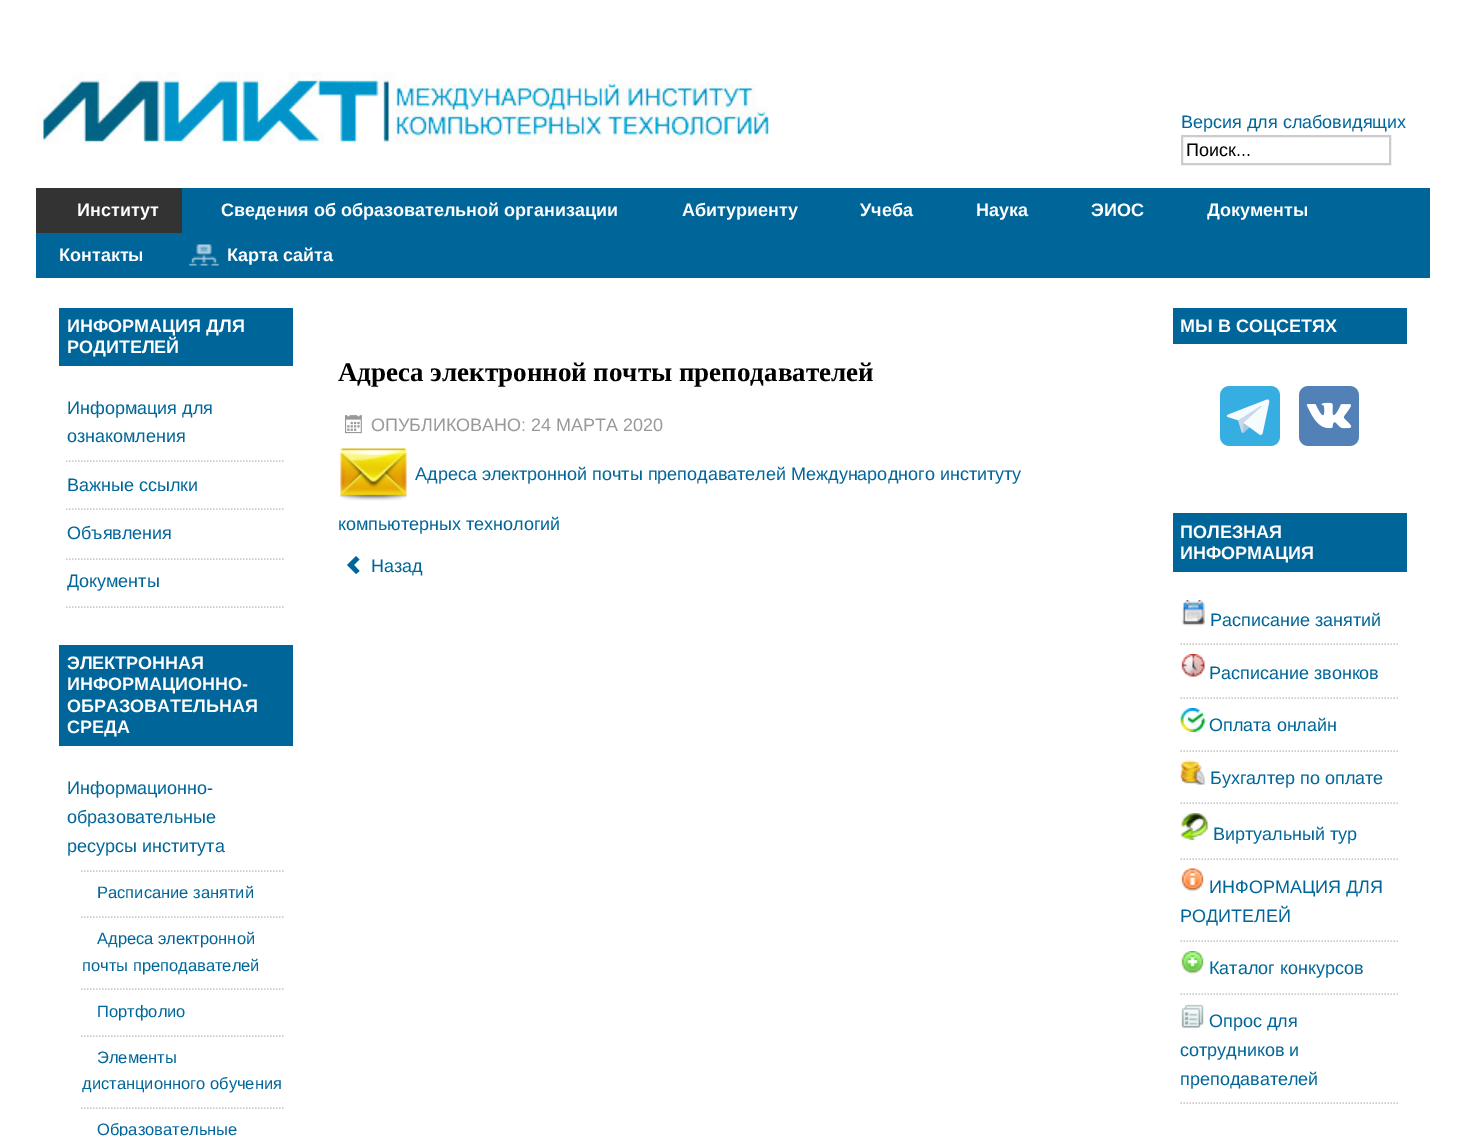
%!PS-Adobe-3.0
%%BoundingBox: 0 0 1465 1136
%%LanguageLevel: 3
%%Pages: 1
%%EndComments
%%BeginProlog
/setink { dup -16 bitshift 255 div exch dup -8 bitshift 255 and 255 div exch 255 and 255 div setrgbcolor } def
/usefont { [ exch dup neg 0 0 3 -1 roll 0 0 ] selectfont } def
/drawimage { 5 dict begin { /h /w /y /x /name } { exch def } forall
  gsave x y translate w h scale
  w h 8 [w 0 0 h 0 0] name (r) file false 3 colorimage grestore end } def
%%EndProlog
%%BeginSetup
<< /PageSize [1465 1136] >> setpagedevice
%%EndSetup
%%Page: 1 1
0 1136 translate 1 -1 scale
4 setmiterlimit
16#FFFFFF setink
0 0 1465 1136 rectfill
(img1.raw) 36 72 733 72 drawimage
/LiberationSans-Regular 18 usefont
16#006699 setink
1181 128 moveto (Версия для слабовидящих) show
16#CCCCCC setink
2 setlinewidth
1182 136 208 28 rectstroke
16#000000 setink
1186 156 moveto (Поиск...) show
16#006699 setink
36 188 1394 90 rectfill
16#333333 setink
36 188 146 45 rectfill
/LiberationSans-Bold 18 usefont
16#FFFFFF setink
[
    [(Институт) 77 216]
    [(Сведения об образовательной организации) 221 216]
    [(Абитуриенту) 682 216]
    [(Учеба) 860 216]
    [(Наука) 976 216]
    [(ЭИОС) 1091 216]
    [(Документы) 1207 216]
    [(Контакты) 59 261]
] { aload pop moveto show } forall
(img2.raw) 189 244 30 22 drawimage
227 261 moveto (Карта сайта) show
16#006699 setink
59 308 234 58 rectfill
16#FFFFFF setink
67 332 moveto (ИНФОРМАЦИЯ ДЛЯ) show
67 353 moveto (РОДИТЕЛЕЙ) show
16#CCCCCC setink
1.5 setlinewidth
[1.5 1.5] 0 setdash
66 461 moveto 285 461 lineto stroke
/LiberationSans-Regular 18 usefont
16#006699 setink
67 414 moveto (Информация для) show
67 442 moveto (ознакомления) show
16#CCCCCC setink
66 509 moveto 285 509 lineto stroke
16#006699 setink
67 491 moveto (Важные ссылки) show
16#CCCCCC setink
66 559 moveto 285 559 lineto stroke
16#006699 setink
67 539 moveto (Объявления) show
16#CCCCCC setink
66 607 moveto 285 607 lineto stroke
16#006699 setink
67 587 moveto (Документы) show
59 645 234 101 rectfill
/LiberationSans-Bold 18 usefont
16#FFFFFF setink
[
    [(ЭЛЕКТРОННАЯ) 67 669]
    [(ИНФОРМАЦИОННО-) 67 690]
    [(ОБРАЗОВАТЕЛЬНАЯ) 67 712]
    [(СРЕДА) 67 733]
] { aload pop moveto show } forall
/LiberationSans-Regular 18 usefont
16#006699 setink
[
    [(Информационно-) 67 794]
    [(образовательные) 67 823]
    [(ресурсы института) 67 852]
] { aload pop moveto show } forall
16#CCCCCC setink
81 871 moveto 285 871 lineto stroke
/LiberationSans-Regular 16.5 usefont
16#006699 setink
97 898 moveto (Расписание занятий) show
16#CCCCCC setink
81 917 moveto 285 917 lineto stroke
16#006699 setink
97 944 moveto (Адреса электронной) show
82 971 moveto (почты преподавателей) show
16#CCCCCC setink
81 989 moveto 285 989 lineto stroke
16#006699 setink
97 1017 moveto (Портфолио) show
16#CCCCCC setink
81 1036 moveto 285 1036 lineto stroke
16#006699 setink
97 1063 moveto (Элементы) show
82 1089 moveto (дистанционного обучения) show
16#CCCCCC setink
81 1108 moveto 285 1108 lineto stroke
16#006699 setink
97 1135 moveto (Образовательные) show
/LiberationSerif-Bold 27 usefont
16#000000 setink
338 381 moveto (Адреса электронной почты преподавателей) show
(img3.raw) 345 415 17 19 drawimage
/LiberationSans-Regular 18 usefont
16#999999 setink
371 431 moveto (ОПУБЛИКОВАНО: 24 МАРТА 2020) show
(img4.raw) 340 448 67 53 drawimage
16#006699 setink
415 480 moveto (Адреса электронной почты преподавателей Международного институту) show
338 530 moveto (компьютерных технологий) show
356 574 moveto 347 565 lineto 356 556 lineto 359.5 559.5 lineto 354 565 lineto 359.5 571 lineto closepath fill
371 572 moveto (Назад) show
1173 308 234 36 rectfill
/LiberationSans-Bold 18 usefont
16#FFFFFF setink
1180 332 moveto (МЫ В СОЦСЕТЯХ) show
(img5.raw) 1220 386 60 60 drawimage
(img6.raw) 1299 386 60 60 drawimage
16#006699 setink
1173 513 234 59 rectfill
16#FFFFFF setink
1180 538 moveto (ПОЛЕЗНАЯ) show
1180 559 moveto (ИНФОРМАЦИЯ) show
16#CCCCCC setink
1180.5 644 moveto 1399.5 644 lineto stroke
(img7.raw) 1181 600 24 26 drawimage
/LiberationSans-Regular 18 usefont
16#006699 setink
1210 626 moveto (Расписание занятий) show
16#CCCCCC setink
1180.5 698 moveto 1399.5 698 lineto stroke
(img8.raw) 1181 654 24 23 drawimage
16#006699 setink
1209 679 moveto (Расписание звонков) show
16#CCCCCC setink
1180.5 751 moveto 1399.5 751 lineto stroke
(img9.raw) 1180 708 25 24 drawimage
16#006699 setink
1209 731 moveto (Оплата онлайн) show
16#CCCCCC setink
1180.5 803 moveto 1399.5 803 lineto stroke
(img10.raw) 1180 760 26 25 drawimage
16#006699 setink
1210 784 moveto (Бухгалтер по оплате) show
16#CCCCCC setink
1180.5 859 moveto 1399.5 859 lineto stroke
(img11.raw) 1180 813 29 27 drawimage
16#006699 setink
1213 840 moveto (Виртуальный тур) show
16#CCCCCC setink
1180.5 941 moveto 1399.5 941 lineto stroke
(img12.raw) 1181 868 23 24 drawimage
16#006699 setink
1209 893 moveto (ИНФОРМАЦИЯ ДЛЯ) show
1180 922 moveto (РОДИТЕЛЕЙ) show
16#CCCCCC setink
1180.5 994 moveto 1399.5 994 lineto stroke
(img13.raw) 1181 951 23 23 drawimage
16#006699 setink
1209 974 moveto (Каталог конкурсов) show
16#CCCCCC setink
1180.5 1103 moveto 1399.5 1103 lineto stroke
(img14.raw) 1181 1004 23 24 drawimage
16#006699 setink
[
    [(Опрос для) 1209 1027]
    [(сотрудников и) 1180 1056]
    [(преподавателей) 1180 1085]
] { aload pop moveto show } forall
showpage
%%EOF
